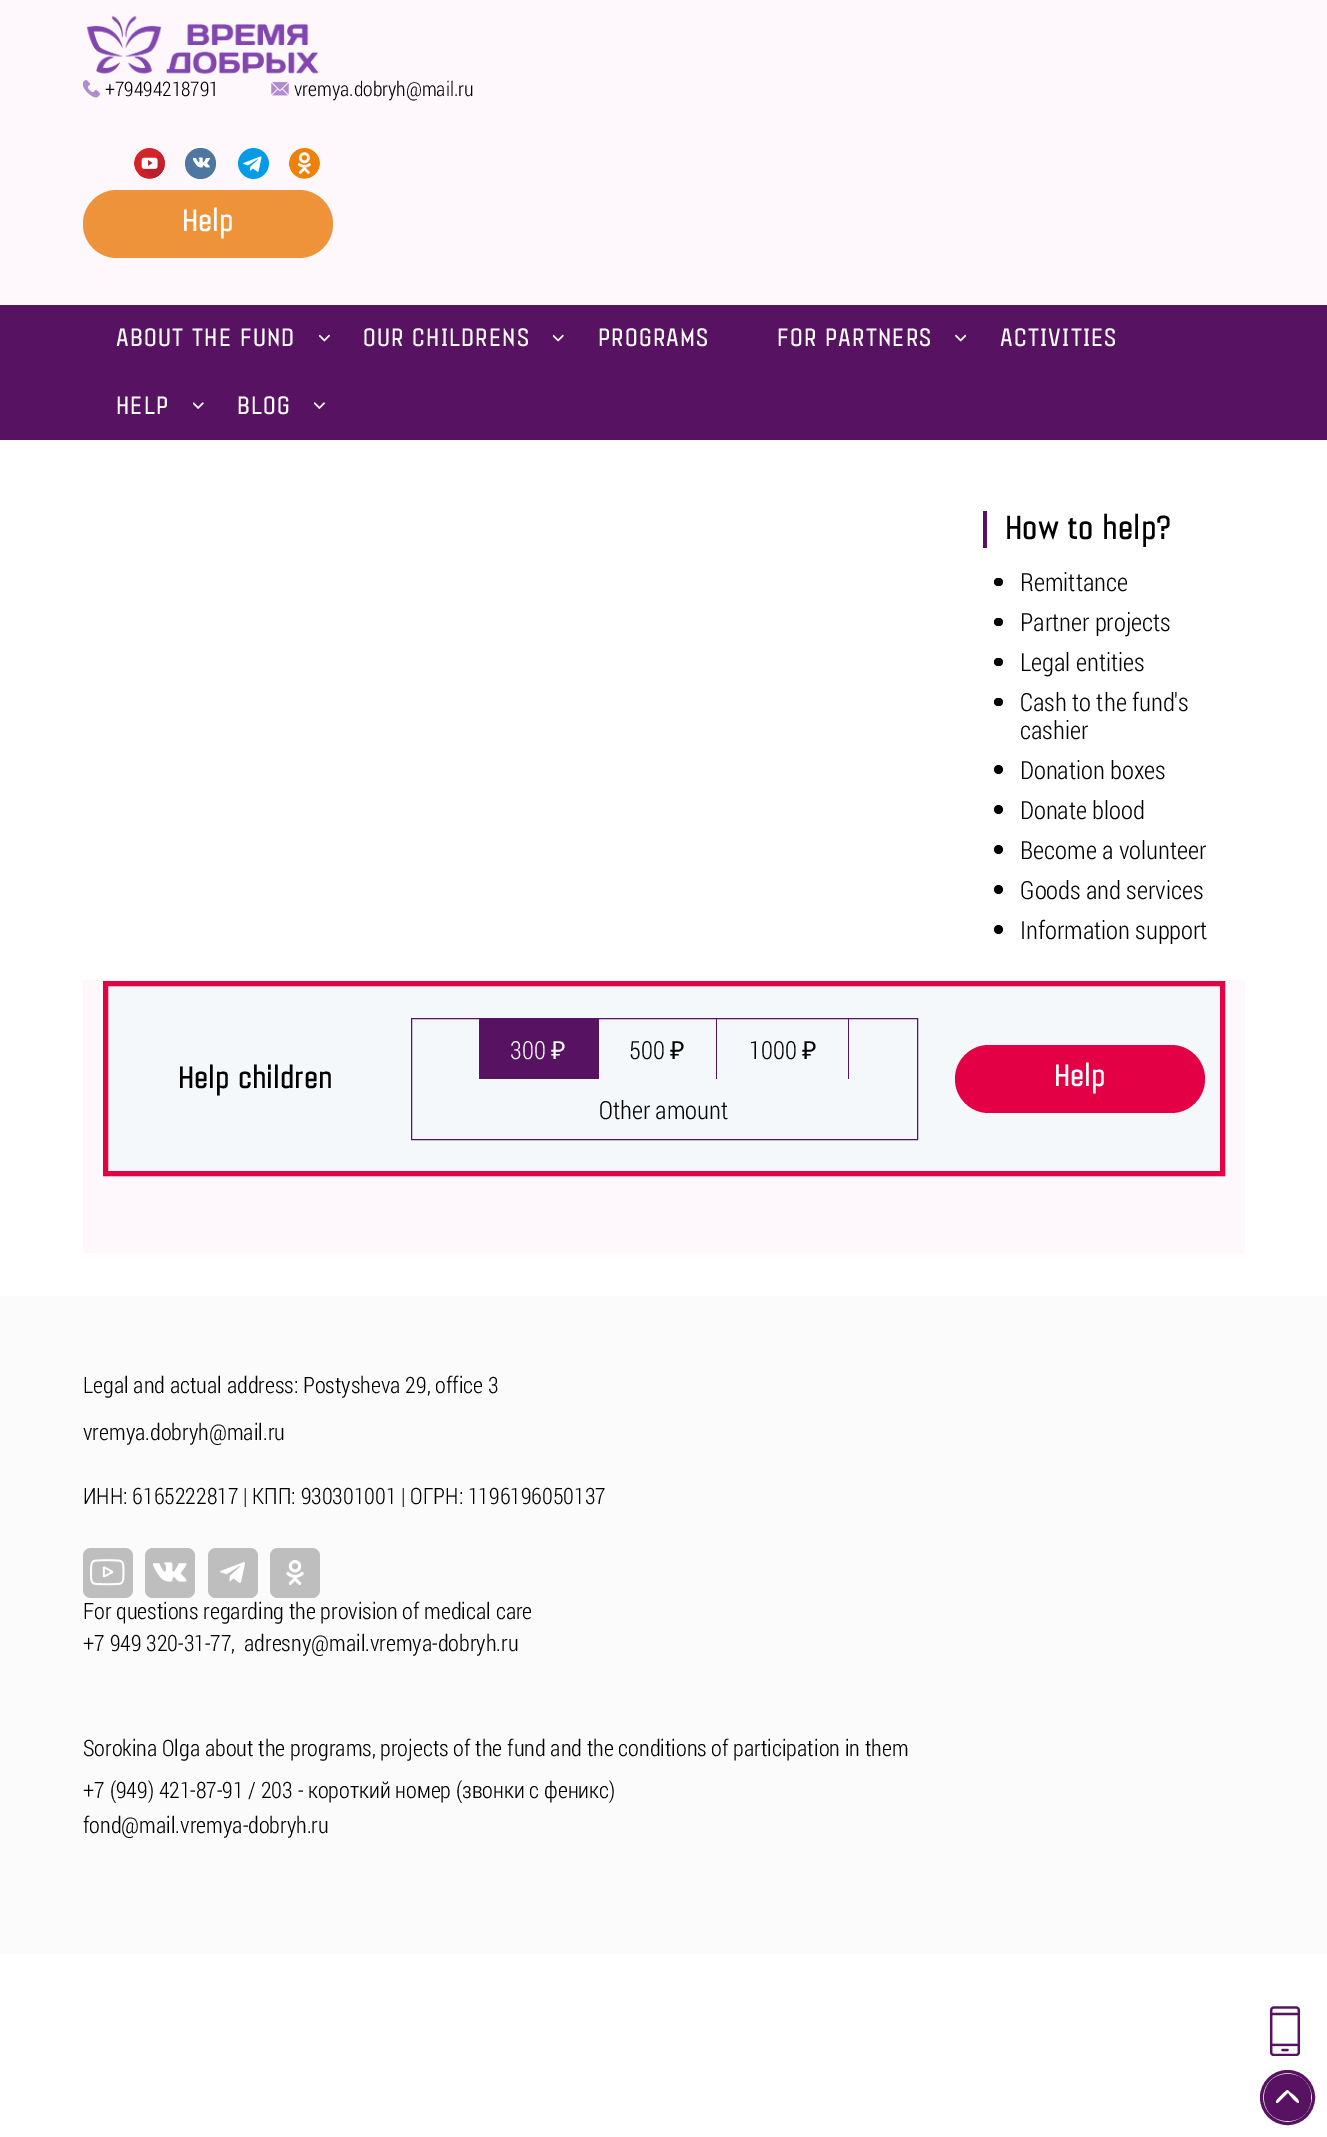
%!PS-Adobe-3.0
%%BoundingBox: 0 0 1327 2137
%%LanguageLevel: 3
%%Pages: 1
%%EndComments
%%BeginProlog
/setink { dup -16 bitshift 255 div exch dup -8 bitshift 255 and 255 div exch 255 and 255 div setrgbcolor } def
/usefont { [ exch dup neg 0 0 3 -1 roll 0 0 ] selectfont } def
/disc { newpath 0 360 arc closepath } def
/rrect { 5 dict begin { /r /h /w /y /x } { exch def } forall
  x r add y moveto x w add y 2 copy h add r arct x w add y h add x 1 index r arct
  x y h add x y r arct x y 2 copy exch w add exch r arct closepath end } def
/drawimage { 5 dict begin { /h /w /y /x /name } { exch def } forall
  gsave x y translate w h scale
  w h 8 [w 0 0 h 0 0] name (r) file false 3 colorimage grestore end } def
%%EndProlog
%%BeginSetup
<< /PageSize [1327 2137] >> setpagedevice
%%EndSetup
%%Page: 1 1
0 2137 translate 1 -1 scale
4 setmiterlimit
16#FFFFFF setink
0 0 1327 2137 rectfill
16#FEF8FC setink
0 0 1327 305 rectfill
(img1.raw) 86 15 233 59 drawimage
(img2.raw) 83 80 17 18 drawimage
/RobotoCondensed-Light 20 usefont
16#000000 setink
105 96 moveto (+79494218791) show
(img3.raw) 271 82 18 14 drawimage
294 96 moveto (vremya.dobryh@mail.ru) show
(img4.raw) 134 148 31 31 drawimage
16#4D76A1 setink
200.5 163.5 15.5 disc fill
(img5.raw) 193 157 17 11 drawimage
(img6.raw) 238 148 31 31 drawimage
(img7.raw) 289 148 31 31 drawimage
16#EE933A setink
83 190 250 68 34 rrect fill
/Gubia-Bold 33.75 usefont
16#FFFFFF setink
182 231 moveto (Help) show
16#571261 setink
0 305 1327 135 rectfill
(img8.raw) 319 334 11 8 drawimage
/Gubia-Bold 27.5 usefont
16#FFFFFF setink
116 346 moveto 1.25 0 (ABOUT THE FUND) ashow
(img9.raw) 553 334 11 8 drawimage
363 346 moveto 1.25 0 (OUR CHILDRENS) ashow
598 346 moveto 1.25 0 (PROGRAMS) ashow
(img10.raw) 955 334 11 8 drawimage
777 346 moveto 1.25 0 (FOR PARTNERS) ashow
1000 346 moveto 1.25 0 (ACTIVITIES) ashow
(img11.raw) 193 402 11 7 drawimage
116 414 moveto 1.25 0 (HELP) ashow
(img12.raw) 314 402 11 7 drawimage
237 414 moveto 1.25 0 (BLOG) ashow
16#571261 setink
983 511 4 37 rectfill
/Gubia-Bold 36.25 usefont
16#000000 setink
1005 539 moveto (How to help?) show
994 578 9 8 4 rrect fill
/RobotoCondensed-Light 25 usefont
1020 591 moveto (Remittance) show
994 618 9 8 4 rrect fill
1020 631 moveto (Partner projects) show
994 658 9 8 4 rrect fill
1020 671 moveto (Legal entities) show
994 698 9 8 4 rrect fill
1020 711 moveto (Cash to the fund's) show
1020 739 moveto (cashier) show
998.5 769.5 4.5 disc fill
1020 779 moveto (Donation boxes) show
998.5 809.5 4.5 disc fill
1020 819 moveto (Donate blood) show
998.5 849.5 4.5 disc fill
1020 859 moveto (Become a volunteer) show
998.5 889.5 4.5 disc fill
1020 899 moveto (Goods and services) show
998.5 929.5 4.5 disc fill
1020 939 moveto (Information support) show
16#FEF8FC setink
83 980 1162 273 rectfill
16#F5F8FA setink
105.5 983.5 moveto 1222.5 983.5 lineto 1222.5 1173.5 lineto 105.5 1173.5 lineto closepath gsave fill grestore
16#E40045 setink
5 setlinewidth
stroke
/Gubia-Bold 33.75 usefont
16#000000 setink
178 1088 moveto (Help children) show
16#571261 setink
1 setlinewidth
411.5 1018.5 506 121 rectstroke
479 1019 120 60 rectfill
/RobotoCondensed-Light 25 usefont
16#FFFFFF setink
510 1059 moveto (300) show
/NotoSans-Regular 25 usefont
551 1059 moveto (₽) show
16#571261 setink
716 1019 1 60 rectfill
/RobotoCondensed-Light 25 usefont
16#000000 setink
629 1059 moveto (500) show
/NotoSans-Regular 25 usefont
670 1059 moveto (₽) show
16#571261 setink
848 1019 1 60 rectfill
/RobotoCondensed-Light 25 usefont
16#000000 setink
749 1059 moveto (1000) show
/NotoSans-Regular 25 usefont
802 1059 moveto (₽) show
/RobotoCondensed-Light 25 usefont
599 1119 moveto (Other amount) show
16#E40045 setink
955 1045 250 68 34 rrect fill
/Gubia-Bold 33.75 usefont
16#FFFFFF setink
1054 1086 moveto (Help) show
16#FBFBFB setink
0 1296 1327 658 rectfill
/RobotoCondensed-Light 22.5 usefont
16#000000 setink
[
    [(Legal and actual address: Postysheva 29, office 3) 83 1393]
    [(vremya.dobryh@mail.ru) 83 1440]
    [(ИНН: 6165222817 | КПП: 930301001 | ОГРН: 1196196050137) 83 1504]
] { aload pop moveto show } forall
16#BEBEBE setink
83 1548 50 50 8 rrect fill
(img13.raw) 90 1559 35 27 drawimage
145 1548 50 50 8 rrect fill
(img14.raw) 153 1562 34 20 drawimage
208 1548 50 50 8 rrect fill
(img15.raw) 220 1562 25 21 drawimage
270 1548 50 50 8 rrect fill
(img16.raw) 286 1560 18 25 drawimage
16#000000 setink
[
    [(For questions regarding the provision of medical care) 83 1619]
    [(+7 949 320-31-77,) 83 1651]
    [(adresny@mail.vremya-dobryh.ru) 244 1651]
    [(Sorokina Olga about the programs, projects of the fund and the conditions of participation in them) 83 1756]
    [(+7 \(949\) 421-87-91 / 203 - короткий номер \(звонки с феникс\)) 83 1798]
    [(fond@mail.vremya-dobryh.ru) 83 1833]
] { aload pop moveto show } forall
(img17.raw) 1269 2006 32 50 drawimage
gsave
1264 2074 47 47 rectclip
16#571261 setink
1288 2074 moveto 1256 2074 1256 2121 1288 2121 curveto 1319 2121 1319 2074 1288 2074 curveto closepath 1299 2103 moveto 1297 2105 1289 2095 1288 2093 curveto 1278 2103 lineto 1276 2103 lineto 1274 2100 1282 2095 1283 2093 curveto 1287 2090 1287 2088 1290 2092 curveto 1292 2093 1301 2100 1299 2103 curveto closepath fill
grestore
16#571261 setink
3 setlinewidth
1287.5 2097.5 26 disc stroke
showpage
%%EOF
